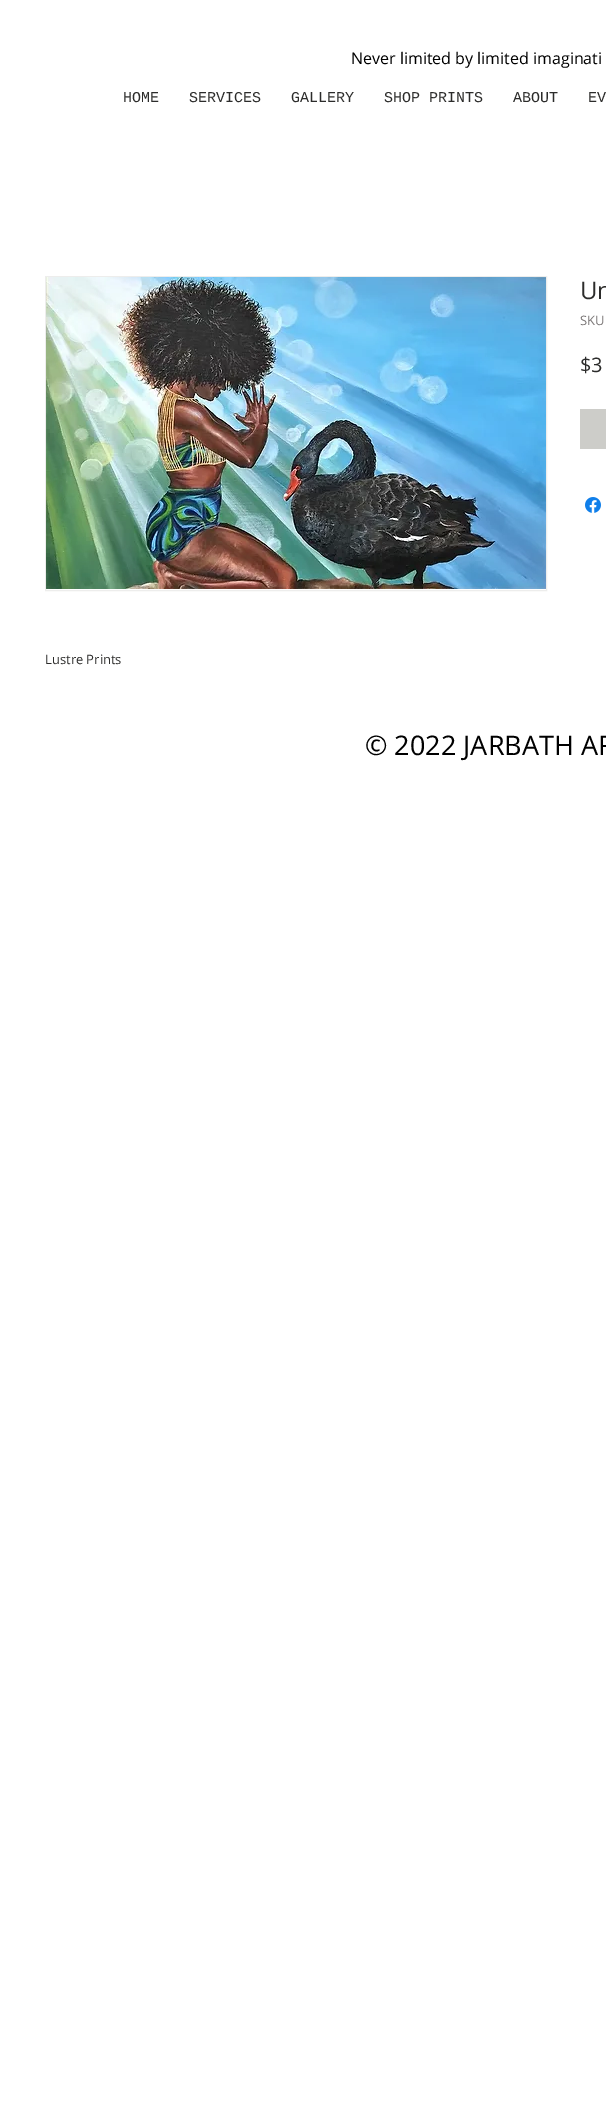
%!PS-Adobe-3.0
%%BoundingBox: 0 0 606 2119
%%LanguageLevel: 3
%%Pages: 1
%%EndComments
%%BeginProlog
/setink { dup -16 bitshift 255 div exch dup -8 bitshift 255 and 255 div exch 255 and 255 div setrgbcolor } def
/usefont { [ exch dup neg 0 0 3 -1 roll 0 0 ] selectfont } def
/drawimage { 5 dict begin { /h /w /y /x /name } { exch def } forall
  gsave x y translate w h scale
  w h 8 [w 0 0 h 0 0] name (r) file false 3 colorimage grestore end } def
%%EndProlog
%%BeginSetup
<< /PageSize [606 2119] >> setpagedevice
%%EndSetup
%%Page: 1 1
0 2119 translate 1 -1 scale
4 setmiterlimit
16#FFFFFF setink
0 0 606 2119 rectfill
/OpenSans-Regular 16 usefont
16#000000 setink
351 64 moveto (Never limited by limited imaginati) show
/LiberationMono-Regular 15 usefont
16#2C2C2B setink
[
    [(HOME) 123 102]
    [(SERVICES) 189 102]
    [(GALLERY) 291 102]
    [(SHOP PRINTS) 384 102]
    [(ABOUT) 513 102]
    [(EV) 588 102]
] { aload pop moveto show } forall
/OpenSans-Regular 24 usefont
580 299 moveto (Un) show
/OpenSans-Regular 13 usefont
16#7C7878 setink
580 325 moveto (SKU) show
/OpenSans-Regular 20 usefont
16#2C2C2B setink
580 372 moveto ($3) show
16#CDCDC9 setink
580 409 26 40 rectfill
(img1.raw) 585 497 16 16 drawimage
16#EDEDEC setink
45.5 276.5 501 314 rectstroke
(img2.raw) 46 277 500 312 drawimage
/OpenSans-Regular 13 usefont
16#2C2C2B setink
45 664 moveto (Lustre Prints) show
/OpenSans-Regular 27 usefont
16#000000 setink
365 755 moveto (© 2022 JARBATH AR) show
showpage
%%EOF
